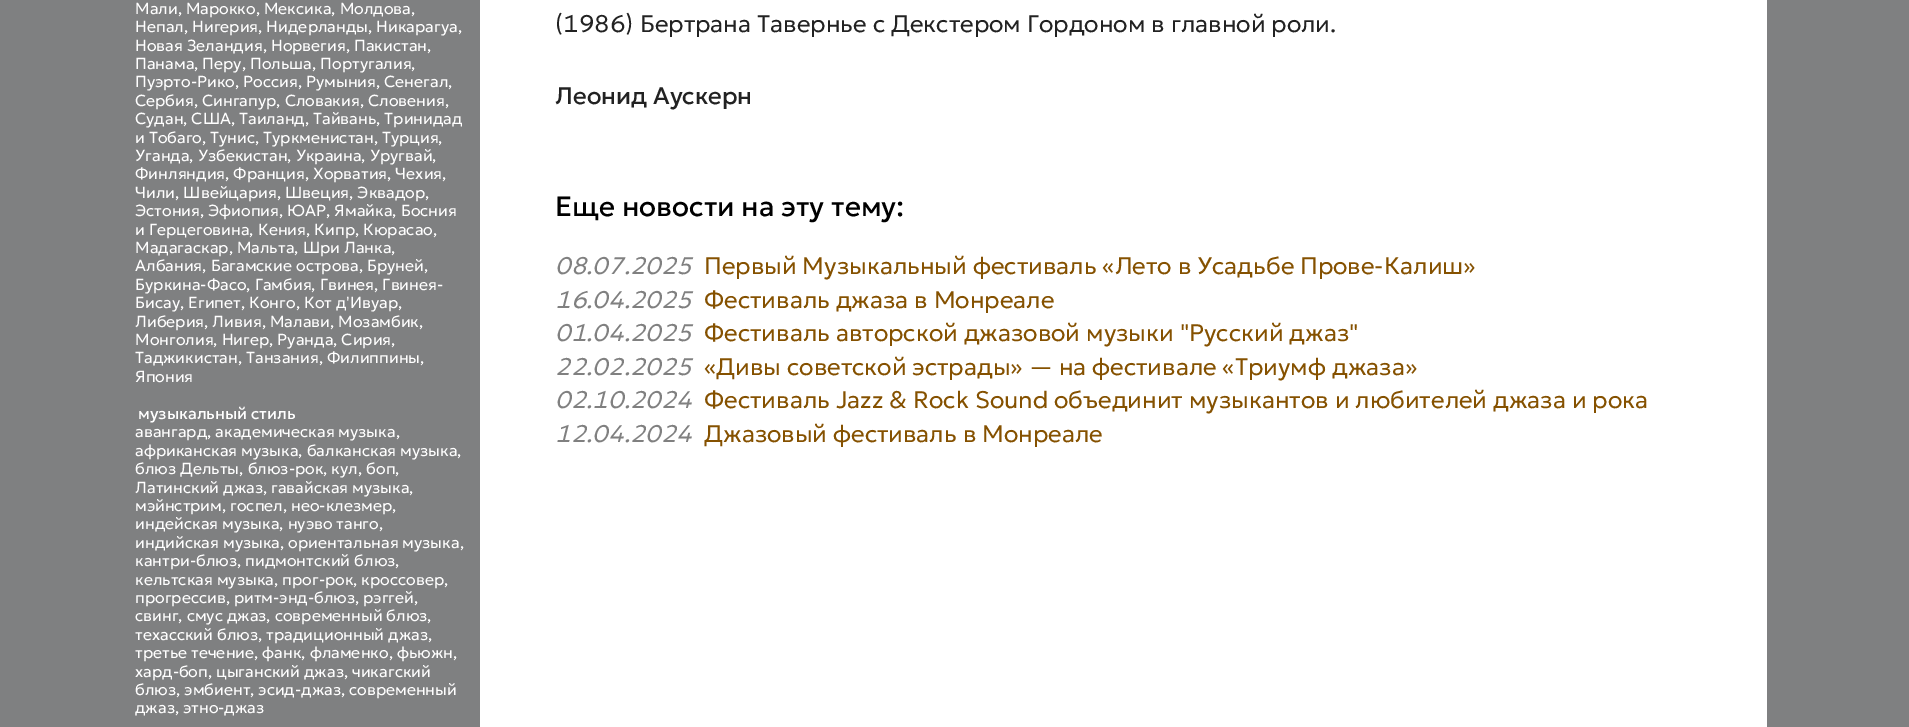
%!PS-Adobe-3.0
%%BoundingBox: 0 0 1909 727
%%LanguageLevel: 3
%%Pages: 1
%%EndComments
%%BeginProlog
/setink { dup -16 bitshift 255 div exch dup -8 bitshift 255 and 255 div exch 255 and 255 div setrgbcolor } def
/usefont { [ exch dup neg 0 0 3 -1 roll 0 0 ] selectfont } def
%%EndProlog
%%BeginSetup
<< /PageSize [1909 727] >> setpagedevice
%%EndSetup
%%Page: 1 1
0 727 translate 1 -1 scale
4 setmiterlimit
16#7F8081 setink
0 0 1909 727 rectfill
/Geologica-Light 16 usefont
16#FFFFFF setink
[
    [(Мали, Марокко, Мексика, Молдова,) 135 14]
    [(Непал, Нигерия, Нидерланды, Никарагуа,) 135 32]
    [(Новая Зеландия, Норвегия, Пакистан,) 135 51]
    [(Панама, Перу, Польша, Португалия,) 135 69]
    [(Пуэрто-Рико, Россия, Румыния, Сенегал,) 135 87]
    [(Сербия, Сингапур, Словакия, Словения,) 135 106]
    [(Судан, США, Таиланд, Тайвань, Тринидад) 135 124]
    [(и Тобаго, Тунис, Туркменистан, Турция,) 135 143]
    [(Уганда, Узбекистан, Украина, Уругвай,) 135 161]
    [(Финляндия, Франция, Хорватия, Чехия,) 135 179]
    [(Чили, Швейцария, Швеция, Эквадор,) 135 198]
    [(Эстония, Эфиопия, ЮАР, Ямайка, Босния) 135 216]
    [(и Герцеговина, Кения, Кипр, Кюрасао,) 135 235]
    [(Мадагаскар, Мальта, Шри Ланка,) 135 253]
    [(Албания, Багамские острова, Бруней,) 135 271]
    [(Буркина-Фасо, Гамбия, Гвинея, Гвинея-) 135 290]
    [(Бисау, Египет, Конго, Кот д'Ивуар,) 135 308]
    [(Либерия, Ливия, Малави, Мозамбик,) 135 327]
    [(Монголия, Нигер, Руанда, Сирия,) 135 345]
    [(Таджикистан, Танзания, Филиппины,) 135 363]
    [(Япония) 135 382]
] { aload pop moveto show } forall
/Geologica-Regular 16 usefont
138 419 moveto (музыкальный стиль) show
/Geologica-Light 16 usefont
[
    [(авангард, академическая музыка,) 135 437]
    [(африканская музыка, балканская музыка,) 135 456]
    [(блюз Дельты, блюз-рок, кул, боп,) 135 474]
    [(Латинский джаз, гавайская музыка,) 135 493]
    [(мэйнстрим, госпел, нео-клезмер,) 135 511]
    [(индейская музыка, нуэво танго,) 135 529]
    [(индийская музыка, ориентальная музыка,) 135 548]
    [(кантри-блюз, пидмонтский блюз,) 135 566]
    [(кельтская музыка, прог-рок, кроссовер,) 135 585]
    [(прогрессив, ритм-энд-блюз, рэггей,) 135 603]
    [(свинг, смус джаз, современный блюз,) 135 621]
    [(техасский блюз, традиционный джаз,) 135 640]
    [(третье течение, фанк, фламенко, фьюжн,) 135 658]
    [(хард-боп, цыганский джаз, чикагский) 135 677]
    [(блюз, эмбиент, эсид-джаз, современный) 135 695]
    [(джаз, этно-джаз) 135 713]
] { aload pop moveto show } forall
480 0 1287 727 rectfill
/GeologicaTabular-Light 24 usefont
16#222222 setink
555 32 moveto (\(1986\) Бертрана Тавернье c Декстером Гордоном в главной роли.) show
/Geologica-Regular 24 usefont
555 104 moveto (Леонид Аускерн) show
/Geologica-Regular 28 usefont
16#000000 setink
555 216 moveto (Еще новости на эту тему:) show
/GeologicaTabular-LightItalic 24 usefont
16#808080 setink
555 274 moveto (08.07.2025) show
/Geologica-Light 24 usefont
16#855100 setink
704 274 moveto (Первый Музыкальный фестиваль «Лето в Усадьбе Прове-Калиш») show
/GeologicaTabular-LightItalic 24 usefont
16#808080 setink
555 308 moveto (16.04.2025) show
/Geologica-Light 24 usefont
16#855100 setink
704 308 moveto (Фестиваль джаза в Монреале) show
/GeologicaTabular-LightItalic 24 usefont
16#808080 setink
555 341 moveto (01.04.2025) show
/Geologica-Light 24 usefont
16#855100 setink
704 341 moveto (Фестиваль авторской джазовой музыки "Русский джаз") show
/GeologicaTabular-LightItalic 24 usefont
16#808080 setink
555 375 moveto (22.02.2025) show
/Geologica-Light 24 usefont
16#855100 setink
704 375 moveto («Дивы советской эстрады» — на фестивале «Триумф джаза») show
/GeologicaTabular-LightItalic 24 usefont
16#808080 setink
555 408 moveto (02.10.2024) show
/Geologica-Light 24 usefont
16#855100 setink
704 408 moveto (Фестиваль Jazz & Rock Sound объединит музыкантов и любителей джаза и рока) show
/GeologicaTabular-LightItalic 24 usefont
16#808080 setink
555 442 moveto (12.04.2024) show
/Geologica-Light 24 usefont
16#855100 setink
704 442 moveto (Джазовый фестиваль в Монреале) show
showpage
%%EOF
